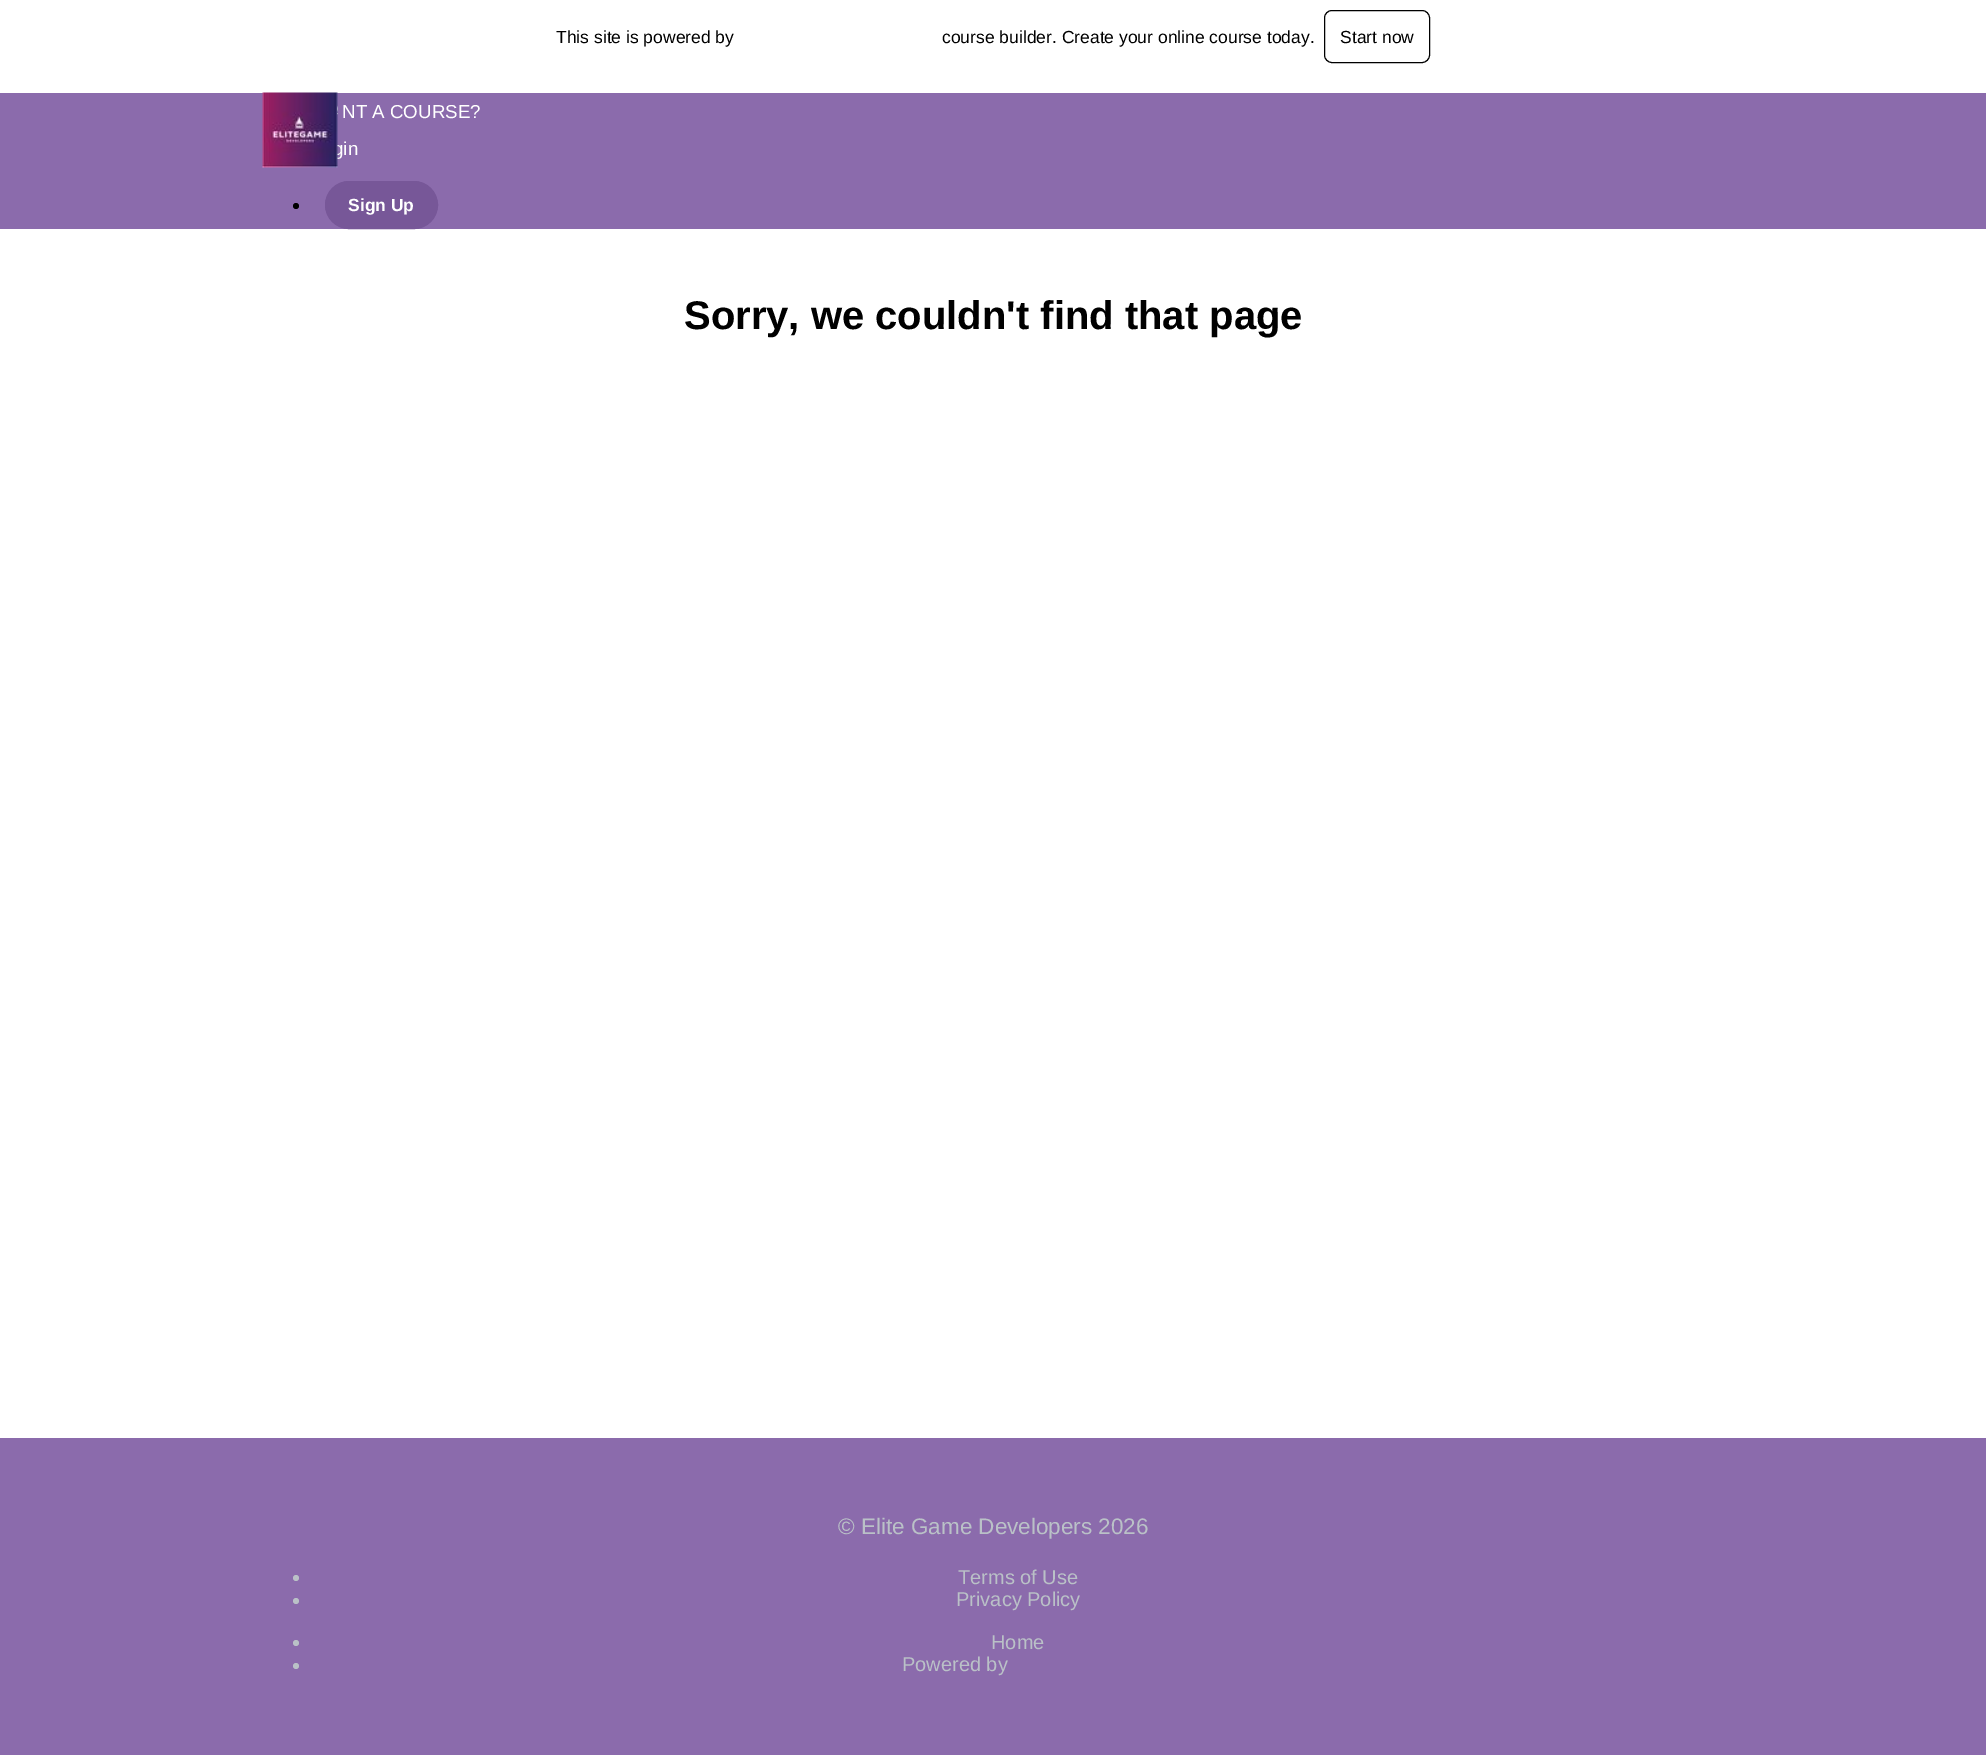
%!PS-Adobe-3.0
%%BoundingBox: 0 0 1986 1755
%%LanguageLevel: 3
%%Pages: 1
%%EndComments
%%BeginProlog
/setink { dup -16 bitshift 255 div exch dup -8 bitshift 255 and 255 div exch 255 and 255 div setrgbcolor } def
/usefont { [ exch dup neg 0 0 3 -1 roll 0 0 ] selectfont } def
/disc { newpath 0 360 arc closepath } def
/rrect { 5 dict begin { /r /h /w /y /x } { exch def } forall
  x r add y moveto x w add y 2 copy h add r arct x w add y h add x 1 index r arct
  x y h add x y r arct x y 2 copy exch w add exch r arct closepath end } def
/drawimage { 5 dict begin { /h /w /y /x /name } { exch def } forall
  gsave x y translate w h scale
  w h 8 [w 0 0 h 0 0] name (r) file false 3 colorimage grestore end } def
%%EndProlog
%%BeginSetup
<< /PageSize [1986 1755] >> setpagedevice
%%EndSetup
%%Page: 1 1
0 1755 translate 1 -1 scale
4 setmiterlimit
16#FFFFFF setink
0 0 1986 1755 rectfill
/LiberationSans-Regular 17.5 usefont
16#000000 setink
556 43 moveto (This site is powered by) show
942 43 moveto (course builder. Create your online course today.) show
1324.5 10.5 105 52 7.5 rrect stroke
1340 43 moveto (Start now) show
16#8B6BAC setink
0 93 1986 136 rectfill
/LiberationSans-Regular 18.75 usefont
16#FFFFFF setink
333 155 moveto (gin) show
(img1.raw) 262 92 76 76 drawimage
342 118 moveto (NT A COURSE?) show
16#000000 setink
296 206 3 disc fill
16#775798 setink
325.5 181.5 112 47 23.5 rrect gsave fill grestore
stroke
/LiberationSans-Bold 17.5 usefont
16#FFFFFF setink
348 211 moveto (Sign Up) show
/LiberationSans-Bold 40 usefont
16#000000 setink
684 329 moveto (Sorry, we couldn't find that page) show
16#8B6BAC setink
0 1438 1986 317 rectfill
/LiberationSans-Regular 22.5 usefont
16#BAC1C7 setink
838 1534 moveto (© Elite Game Developers 2026) show
296 1578 3 disc fill
/LiberationSans-Regular 20 usefont
958 1584 moveto (Terms of Use) show
296 1601 3 disc fill
956 1606 moveto (Privacy Policy) show
296 1643 3 disc fill
991 1649 moveto (Home) show
296 1666 3 disc fill
902 1671 moveto (Powered by) show
showpage
%%EOF
